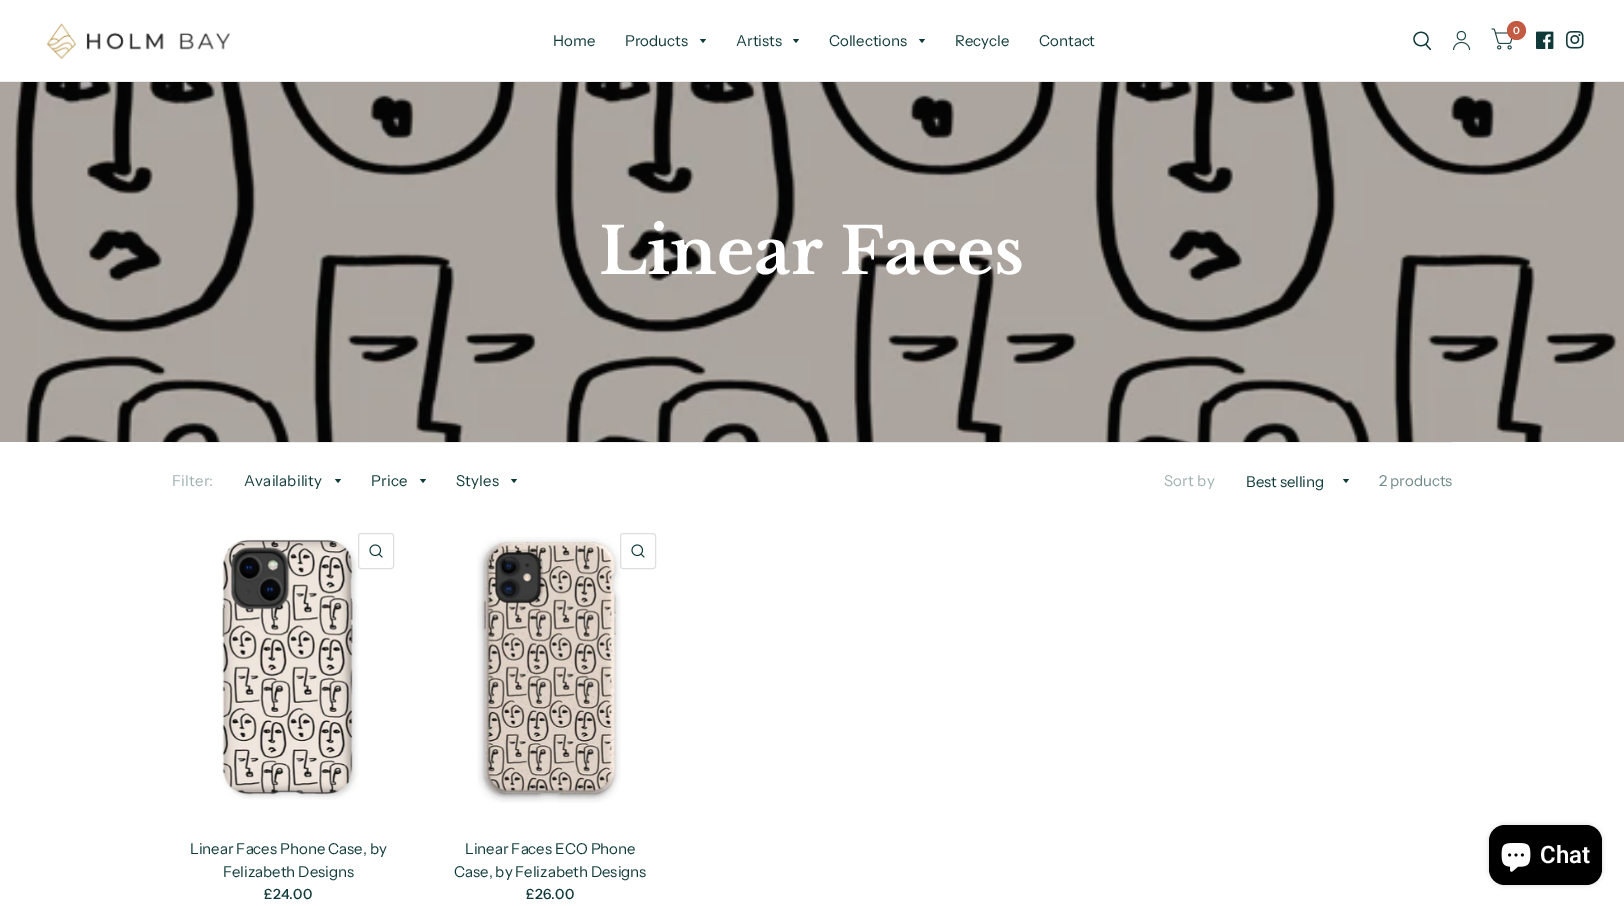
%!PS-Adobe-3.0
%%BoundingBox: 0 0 1624 906
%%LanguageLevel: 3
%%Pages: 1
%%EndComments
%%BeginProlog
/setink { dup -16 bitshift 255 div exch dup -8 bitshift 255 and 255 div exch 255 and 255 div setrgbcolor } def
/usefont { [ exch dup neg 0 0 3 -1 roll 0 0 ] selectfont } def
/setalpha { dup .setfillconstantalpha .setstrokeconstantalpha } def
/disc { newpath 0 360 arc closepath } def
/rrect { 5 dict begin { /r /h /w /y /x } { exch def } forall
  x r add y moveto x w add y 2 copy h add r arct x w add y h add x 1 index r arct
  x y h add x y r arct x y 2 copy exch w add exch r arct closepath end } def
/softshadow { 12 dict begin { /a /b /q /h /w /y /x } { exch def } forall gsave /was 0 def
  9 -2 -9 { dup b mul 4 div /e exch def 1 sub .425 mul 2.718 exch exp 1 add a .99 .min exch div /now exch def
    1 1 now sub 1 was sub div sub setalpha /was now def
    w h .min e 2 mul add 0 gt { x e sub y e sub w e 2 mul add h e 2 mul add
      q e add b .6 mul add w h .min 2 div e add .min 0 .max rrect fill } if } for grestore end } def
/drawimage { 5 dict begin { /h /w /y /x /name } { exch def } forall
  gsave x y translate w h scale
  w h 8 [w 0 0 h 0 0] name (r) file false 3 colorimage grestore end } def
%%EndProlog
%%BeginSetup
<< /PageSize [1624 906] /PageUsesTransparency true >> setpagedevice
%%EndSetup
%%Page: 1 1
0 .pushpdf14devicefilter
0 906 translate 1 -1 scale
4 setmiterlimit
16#FFFFFF setink
0 0 1624 906 rectfill
16#EEEEEE setink
0 81 1624 1 rectfill
(img1.raw) 46 23 185 37 drawimage
16#103A3A setink
1.2 setlinewidth
1 setlinecap
1 setlinejoin
1426 44.5 moveto 1430.5 49.5 lineto 1428 39 moveto 1428 48 1414 48 1414 39 curveto 1414 30 1428 30 1428 39 curveto closepath stroke
(img2.raw) 1453 30 18 21 drawimage
(img3.raw) 1491 28 22 22 drawimage
16#C25B41 setink
1516.5 30.5 9.5 disc fill
/InstrumentSans-SemiBold 10 usefont
16#FFFFFF setink
1513 34 moveto (0) show
(img4.raw) 1536 31 18 18 drawimage
(img5.raw) 1566 31 18 18 drawimage
/InstrumentSans-Regular 15 usefont
16#103A3A setink
553 46 moveto (Home) show
625 46 moveto (Products) show
700 39 moveto 706 39 lineto 703 43 lineto closepath fill
736 46 moveto (Artists) show
793 39 moveto 799 39 lineto 796 43 lineto closepath fill
829 46 moveto (Collections) show
919 39 moveto 925 39 lineto 922 43 lineto closepath fill
955 46 moveto (Recycle) show
1039 46 moveto (Contact) show
(img6.raw) 0 82 1624 360 drawimage
/LibreBaskerville-Bold 64 usefont
16#FFFFFF setink
599 274 moveto (Linear Faces) show
16#EEEEEE setink
172 442 1280 1 rectfill
/InstrumentSans-Regular 15 usefont
16#9FB0B0 setink
172 486 moveto 0.25 0 (Filter:) ashow
16#103A3A setink
244 486 moveto 0.25 0 (Availability) ashow
335 479 moveto 341 479 lineto 338 483 lineto closepath fill
371 486 moveto 0.25 0 (Price) ashow
420 479 moveto 426 479 lineto 423 483 lineto closepath fill
456 486 moveto 0.25 0 (Styles) ashow
511 479 moveto 517 479 lineto 514 483 lineto closepath fill
16#9FB0B0 setink
1164 486 moveto 0.25 0 (Sort by) ashow
16#103A3A setink
1246 487 moveto (Best selling) show
1343 479 moveto 1349 479 lineto 1346 483 lineto closepath fill
16#708989 setink
1379 486 moveto (2 products) show
(img7.raw) 221 538 138 262 drawimage
16#DEDEDE setink
1 setlinewidth
0 setlinecap
0 setlinejoin
358.5 533.5 35 35 2.5 rrect stroke
(img8.raw) 369 544 14 14 drawimage
16#103A3A setink
190 854 moveto (Linear Faces Phone Case, by) show
223 877 moveto (Felizabeth Designs) show
/InstrumentSans-Medium 14 usefont
264 899 moveto 0.25 0 (£24.00) ashow
(img9.raw) 477 537 144 266 drawimage
16#FFFFFF setink
620.5 533.5 35 35 2.5 rrect gsave fill grestore
16#DEDEDE setink
stroke
(img8.raw) 631 544 14 14 drawimage
/InstrumentSans-Regular 15 usefont
16#103A3A setink
465 854 moveto (Linear Faces ECO Phone) show
454 877 moveto (Case, by Felizabeth Designs) show
/InstrumentSans-Medium 14 usefont
526 899 moveto 0.25 0 (£26.00) ashow
16#000000 setink
1489 825 113 60 16 2.5 0.15 softshadow
1489 825 113 60 16 rrect fill
(img10.raw) 1501 843 30 29 drawimage
/Roboto-SemiBold 24 usefont
16#FFFFFF setink
1540 863 moveto (Chat) show
.poppdf14devicefilter showpage
%%EOF
